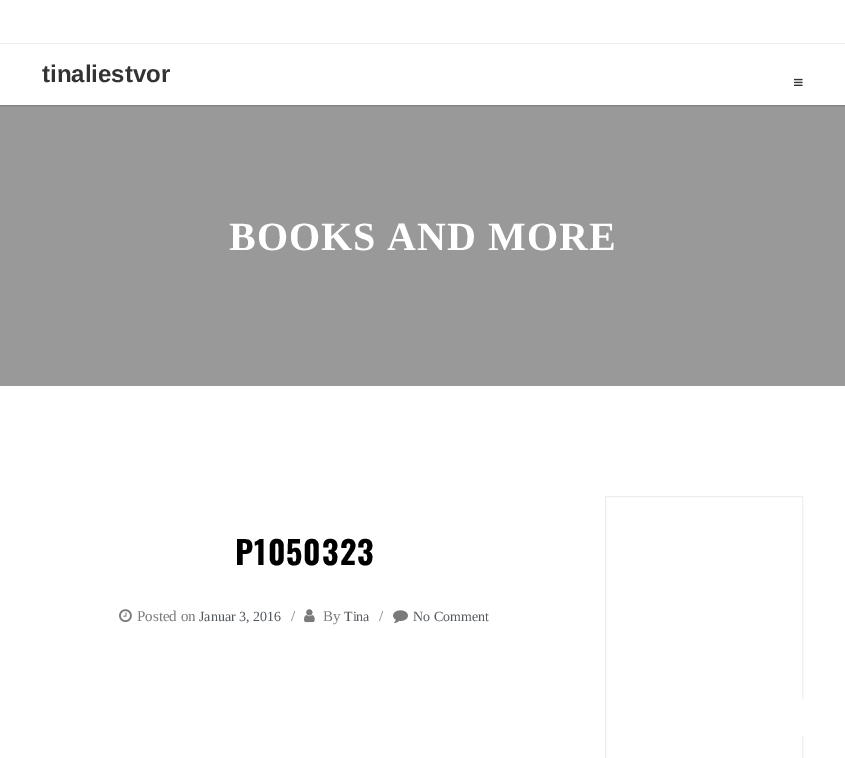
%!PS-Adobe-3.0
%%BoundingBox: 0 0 845 758
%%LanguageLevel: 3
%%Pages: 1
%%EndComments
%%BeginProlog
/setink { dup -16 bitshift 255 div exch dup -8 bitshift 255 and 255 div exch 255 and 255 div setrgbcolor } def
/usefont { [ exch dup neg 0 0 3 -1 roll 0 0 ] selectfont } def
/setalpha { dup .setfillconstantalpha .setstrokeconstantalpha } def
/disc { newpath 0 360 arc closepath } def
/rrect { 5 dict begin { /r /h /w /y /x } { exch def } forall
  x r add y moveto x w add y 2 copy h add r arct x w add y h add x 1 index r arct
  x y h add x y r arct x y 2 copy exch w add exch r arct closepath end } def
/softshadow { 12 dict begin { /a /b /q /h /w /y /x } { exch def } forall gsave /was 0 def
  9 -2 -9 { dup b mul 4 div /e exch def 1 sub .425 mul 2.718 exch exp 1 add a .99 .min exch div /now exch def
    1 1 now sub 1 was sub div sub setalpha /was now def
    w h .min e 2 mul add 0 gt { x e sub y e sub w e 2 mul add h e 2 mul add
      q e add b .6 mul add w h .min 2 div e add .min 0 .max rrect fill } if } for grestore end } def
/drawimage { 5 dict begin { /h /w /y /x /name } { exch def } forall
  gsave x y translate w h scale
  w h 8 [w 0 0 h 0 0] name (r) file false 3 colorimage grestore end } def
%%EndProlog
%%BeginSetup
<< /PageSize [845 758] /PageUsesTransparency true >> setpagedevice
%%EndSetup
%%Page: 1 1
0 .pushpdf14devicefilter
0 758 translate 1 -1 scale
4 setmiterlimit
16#FFFFFF setink
0 0 845 758 rectfill
gsave
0 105 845 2 rectclip
16#000000 setink
0 45 845 61 0 1 0.2 softshadow
grestore
16#EEEEEE setink
0 43 845 1 rectfill
/LiberationSans-Bold 24 usefont
16#333333 setink
42 82 moveto (tinaliestvor) show
(img1.raw) 794 78 9 8 drawimage
0.4 setalpha
16#000000 setink
0 105 845 281 rectfill
/LiberationSerif-Bold 40 usefont
1 setalpha
16#FFFFFF setink
229 250 moveto 1 0 (BOOKS AND MORE) ashow
/Oswald-Bold 32 usefont
16#000000 setink
235 565 moveto 1 0 (P1050323) ashow
(img2.raw) 119 609 13 14 drawimage
/LiberationSerif-Regular 15 usefont
16#7A7A7A setink
137 621 moveto (Posted on) show
/LiberationSerif-Regular 14 usefont
16#54595F setink
199 621 moveto (Januar 3, 2016) show
/LiberationSerif-Regular 15 usefont
16#7A7A7A setink
291 621 moveto (/) show
(img3.raw) 304 609 11 14 drawimage
323 621 moveto (By) show
/LiberationSerif-Regular 14 usefont
16#54595F setink
344 621 moveto (Tina) show
/LiberationSerif-Regular 15 usefont
16#7A7A7A setink
379 621 moveto (/) show
(img4.raw) 393 610 15 14 drawimage
/LiberationSerif-Regular 14 usefont
16#54595F setink
413 621 moveto (No Comment) show
16#EEEEEE setink
605.5 496.5 197 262 rectstroke
16#FFFFFF setink
795 718 20 disc fill
.poppdf14devicefilter showpage
%%EOF
